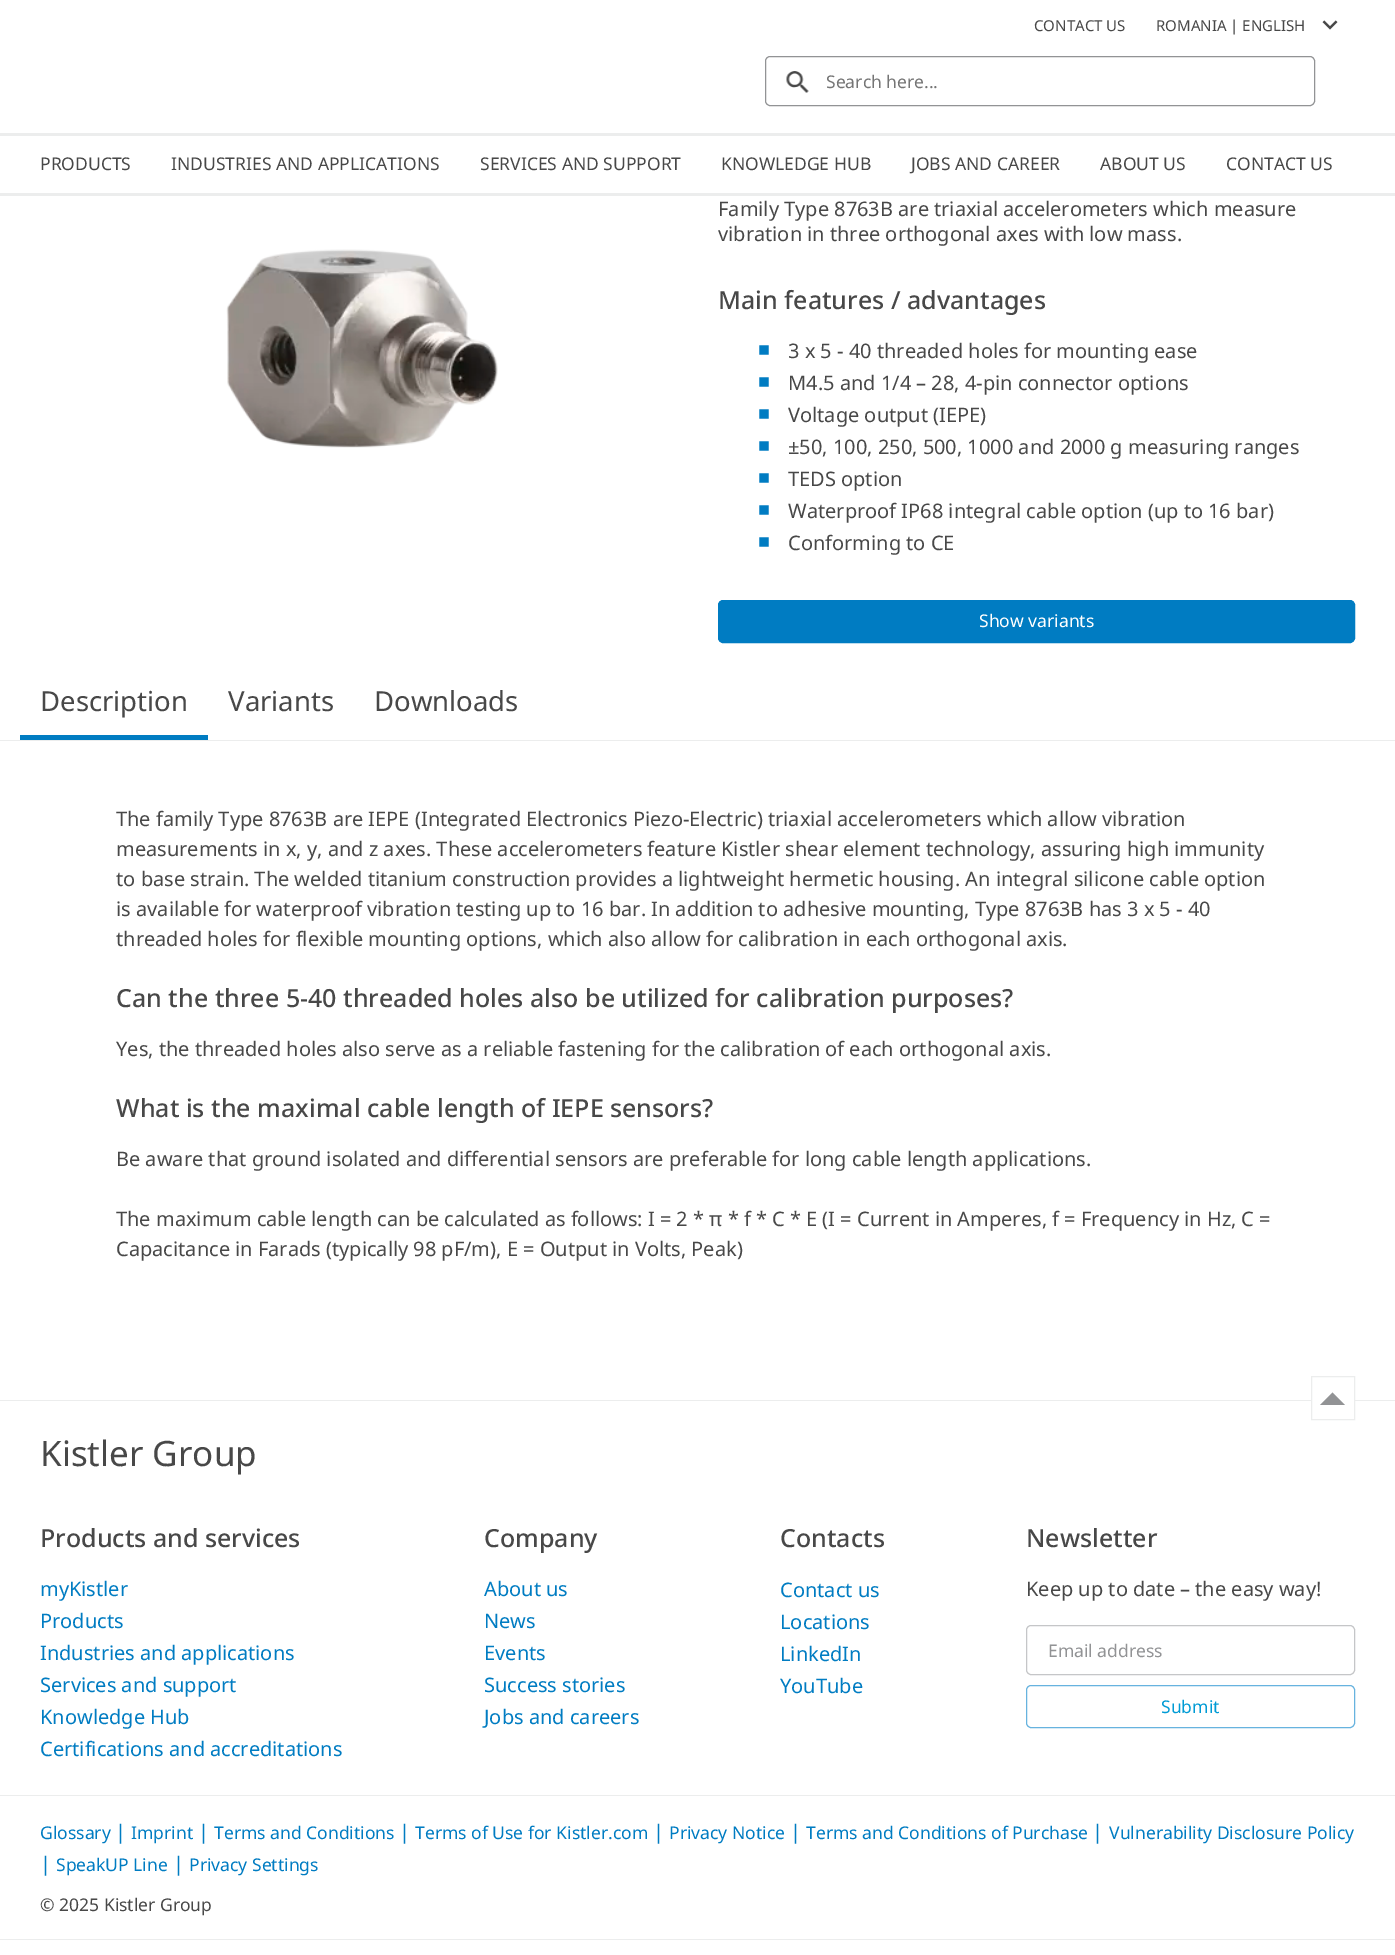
%!PS-Adobe-3.0
%%BoundingBox: 0 0 1395 1955
%%LanguageLevel: 3
%%Pages: 1
%%EndComments
%%BeginProlog
/setink { dup -16 bitshift 255 div exch dup -8 bitshift 255 and 255 div exch 255 and 255 div setrgbcolor } def
/usefont { [ exch dup neg 0 0 3 -1 roll 0 0 ] selectfont } def
/rrect { 5 dict begin { /r /h /w /y /x } { exch def } forall
  x r add y moveto x w add y 2 copy h add r arct x w add y h add x 1 index r arct
  x y h add x y r arct x y 2 copy exch w add exch r arct closepath end } def
/drawimage { 5 dict begin { /h /w /y /x /name } { exch def } forall
  gsave x y translate w h scale
  w h 8 [w 0 0 h 0 0] name (r) file false 3 colorimage grestore end } def
%%EndProlog
%%BeginSetup
<< /PageSize [1395 1955] >> setpagedevice
%%EndSetup
%%Page: 1 1
0 1955 translate 1 -1 scale
4 setmiterlimit
16#FFFFFF setink
0 0 1395 1955 rectfill
/NotoSans-Regular 15 usefont
16#484848 setink
1034 31 moveto (CONTACT US) show
1156 31 moveto (ROMANIA | ENGLISH) show
(img1.raw) 1322 20 16 10 drawimage
16#929395 setink
765.5 56.5 549 49 4.5 rrect stroke
(img2.raw) 786 71 23 22 drawimage
/NotoSans-Regular 17.5 usefont
16#757575 setink
826 88 moveto (Search here...) show
16#ECEDED setink
0 133 1395 3 rectfill
0 193 1395 3 rectfill
16#484848 setink
[
    [(PRODUCTS) 40 170]
    [(INDUSTRIES AND APPLICATIONS) 171 170]
    [(SERVICES AND SUPPORT) 480 170]
    [(KNOWLEDGE HUB) 721 170]
    [(JOBS AND CAREER) 911 170]
    [(ABOUT US) 1100 170]
    [(CONTACT US) 1226 170]
] { aload pop moveto show } forall
(img3.raw) 226 249 272 199 drawimage
/NotoSans-Regular 20 usefont
718 216 moveto (Family Type 8763B are triaxial accelerometers which measure) show
718 241 moveto (vibration in three orthogonal axes with low mass.) show
/NotoSans-Medium 25 usefont
718 309 moveto (Main features / advantages) show
/LiberationSans-Regular 20 usefont
16#007CC2 setink
758 356 moveto (■) show
/NotoSans-Regular 20 usefont
16#484848 setink
788 358 moveto (3 x 5 - 40 threaded holes for mounting ease) show
/LiberationSans-Regular 20 usefont
16#007CC2 setink
758 388 moveto (■) show
/NotoSans-Regular 20 usefont
16#484848 setink
788 390 moveto (M4.5 and 1/4 – 28, 4-pin connector options) show
/LiberationSans-Regular 20 usefont
16#007CC2 setink
758 420 moveto (■) show
/NotoSans-Regular 20 usefont
16#484848 setink
788 422 moveto (Voltage output \(IEPE\)) show
/LiberationSans-Regular 20 usefont
16#007CC2 setink
758 452 moveto (■) show
/NotoSans-Regular 20 usefont
16#484848 setink
788 454 moveto (±50, 100, 250, 500, 1000 and 2000 g measuring ranges) show
/LiberationSans-Regular 20 usefont
16#007CC2 setink
758 484 moveto (■) show
/NotoSans-Regular 20 usefont
16#484848 setink
788 486 moveto (TEDS option) show
/LiberationSans-Regular 20 usefont
16#007CC2 setink
758 516 moveto (■) show
/NotoSans-Regular 20 usefont
16#484848 setink
788 518 moveto (Waterproof IP68 integral cable option \(up to 16 bar\)) show
/LiberationSans-Regular 20 usefont
16#007CC2 setink
758 548 moveto (■) show
/NotoSans-Regular 20 usefont
16#484848 setink
788 550 moveto (Conforming to CE) show
16#007CC2 setink
718.5 600.5 636 42 4.5 rrect gsave fill grestore
stroke
/NotoSans-Regular 17.5 usefont
16#FFFFFF setink
979 627 moveto (Show variants) show
/NotoSans-Regular 27.5 usefont
16#484848 setink
40 711 moveto (Description) show
16#007CC2 setink
20 735 188 5 rectfill
16#484848 setink
228 711 moveto (Variants) show
374 711 moveto (Downloads) show
16#ECEDED setink
0 740 1395 1 rectfill
/NotoSans-Regular 20 usefont
16#484848 setink
[
    [(The family Type 8763B are IEPE \(Integrated Electronics Piezo-Electric\) triaxial accelerometers which allow vibration) 116 826]
    [(measurements in x, y, and z axes. These accelerometers feature Kistler shear element technology, assuring high immunity) 116 856]
    [(to base strain. The welded titanium construction provides a lightweight hermetic housing. An integral silicone cable option) 116 886]
    [(is available for waterproof vibration testing up to 16 bar. In addition to adhesive mounting, Type 8763B has 3 x 5 - 40) 116 916]
    [(threaded holes for flexible mounting options, which also allow for calibration in each orthogonal axis.) 116 946]
] { aload pop moveto show } forall
/NotoSans-Medium 25 usefont
116 1007 moveto (Can the three 5-40 threaded holes also be utilized for calibration purposes?) show
/NotoSans-Regular 20 usefont
116 1056 moveto (Yes, the threaded holes also serve as a reliable fastening for the calibration of each orthogonal axis.) show
/NotoSans-Medium 25 usefont
116 1117 moveto (What is the maximal cable length of IEPE sensors?) show
/NotoSans-Regular 20 usefont
[
    [(Be aware that ground isolated and differential sensors are preferable for long cable length applications.) 116 1166]
    [(The maximum cable length can be calculated as follows: I = 2 * π * f * C * E \(I = Current in Amperes, f = Frequency in Hz, C =) 116 1226]
    [(Capacitance in Farads \(typically 98 pF/m\), E = Output in Volts, Peak\)) 116 1256]
] { aload pop moveto show } forall
16#ECEDED setink
0 1400 1395 1 rectfill
16#FFFFFF setink
1312 1400 42 1 rectfill
16#ECEDED setink
1311.5 1376.5 43 43 rectstroke
16#929395 setink
1345 1405 moveto 1320 1405 lineto 1332.5 1392.5 lineto closepath fill
16#ECEDED setink
0 1795 1395 1 rectfill
/NotoSans-Regular 35 usefont
16#484848 setink
40 1466 moveto (Kistler Group) show
/NotoSans-Medium 25 usefont
40 1547 moveto (Products and services) show
/NotoSans-Regular 20 usefont
16#007CC2 setink
[
    [(myKistler) 40 1596]
    [(Products) 40 1628]
    [(Industries and applications) 40 1660]
    [(Services and support) 40 1692]
    [(Knowledge Hub) 40 1724]
    [(Certifications and accreditations) 40 1756]
] { aload pop moveto show } forall
/NotoSans-Medium 25 usefont
16#484848 setink
484 1547 moveto (Company) show
/NotoSans-Regular 20 usefont
16#007CC2 setink
[
    [(About us) 484 1596]
    [(News) 484 1628]
    [(Events) 484 1660]
    [(Success stories) 484 1692]
    [(Jobs and careers) 484 1724]
] { aload pop moveto show } forall
/NotoSans-Medium 25 usefont
16#484848 setink
780 1547 moveto (Contacts) show
/NotoSans-Regular 20 usefont
16#007CC2 setink
[
    [(Contact us) 780 1597]
    [(Locations) 780 1629]
    [(LinkedIn) 780 1661]
    [(YouTube) 780 1693]
] { aload pop moveto show } forall
/NotoSans-Medium 25 usefont
16#484848 setink
1026 1547 moveto (Newsletter) show
/NotoSans-Regular 20 usefont
1026 1596 moveto (Keep up to date – the easy way!) show
16#C5C6C8 setink
1026.5 1625.5 328 49 4.5 rrect stroke
/NotoSans-Regular 17.5 usefont
16#929395 setink
1048 1657 moveto (Email address) show
16#67B3DF setink
1026.5 1685.5 328 42 4.5 rrect stroke
16#009BD5 setink
1161 1713 moveto (Submit) show
16#ECEDED setink
0 1939 1395 1 rectfill
16#007CC2 setink
40 1839 moveto (Glossary) show
/NotoSans-Regular 20 usefont
115 1839 moveto (|) show
/NotoSans-Regular 17.5 usefont
131 1839 moveto (Imprint) show
/NotoSans-Regular 20 usefont
198 1839 moveto (|) show
/NotoSans-Regular 17.5 usefont
214 1839 moveto (Terms and Conditions) show
/NotoSans-Regular 20 usefont
399 1839 moveto (|) show
/NotoSans-Regular 17.5 usefont
415 1839 moveto (Terms of Use for Kistler.com) show
/NotoSans-Regular 20 usefont
653 1839 moveto (|) show
/NotoSans-Regular 17.5 usefont
669 1839 moveto (Privacy Notice) show
/NotoSans-Regular 20 usefont
790 1839 moveto (|) show
/NotoSans-Regular 17.5 usefont
806 1839 moveto (Terms and Conditions of Purchase) show
/NotoSans-Regular 20 usefont
1092 1839 moveto (|) show
/NotoSans-Regular 17.5 usefont
1109 1839 moveto (Vulnerability Disclosure Policy) show
/NotoSans-Regular 20 usefont
40 1871 moveto (|) show
/NotoSans-Regular 17.5 usefont
56 1871 moveto (SpeakUP Line) show
/NotoSans-Regular 20 usefont
173 1871 moveto (|) show
/NotoSans-Regular 17.5 usefont
189 1871 moveto (Privacy Settings) show
16#484848 setink
40 1911 moveto (© 2025 Kistler Group) show
showpage
%%EOF
